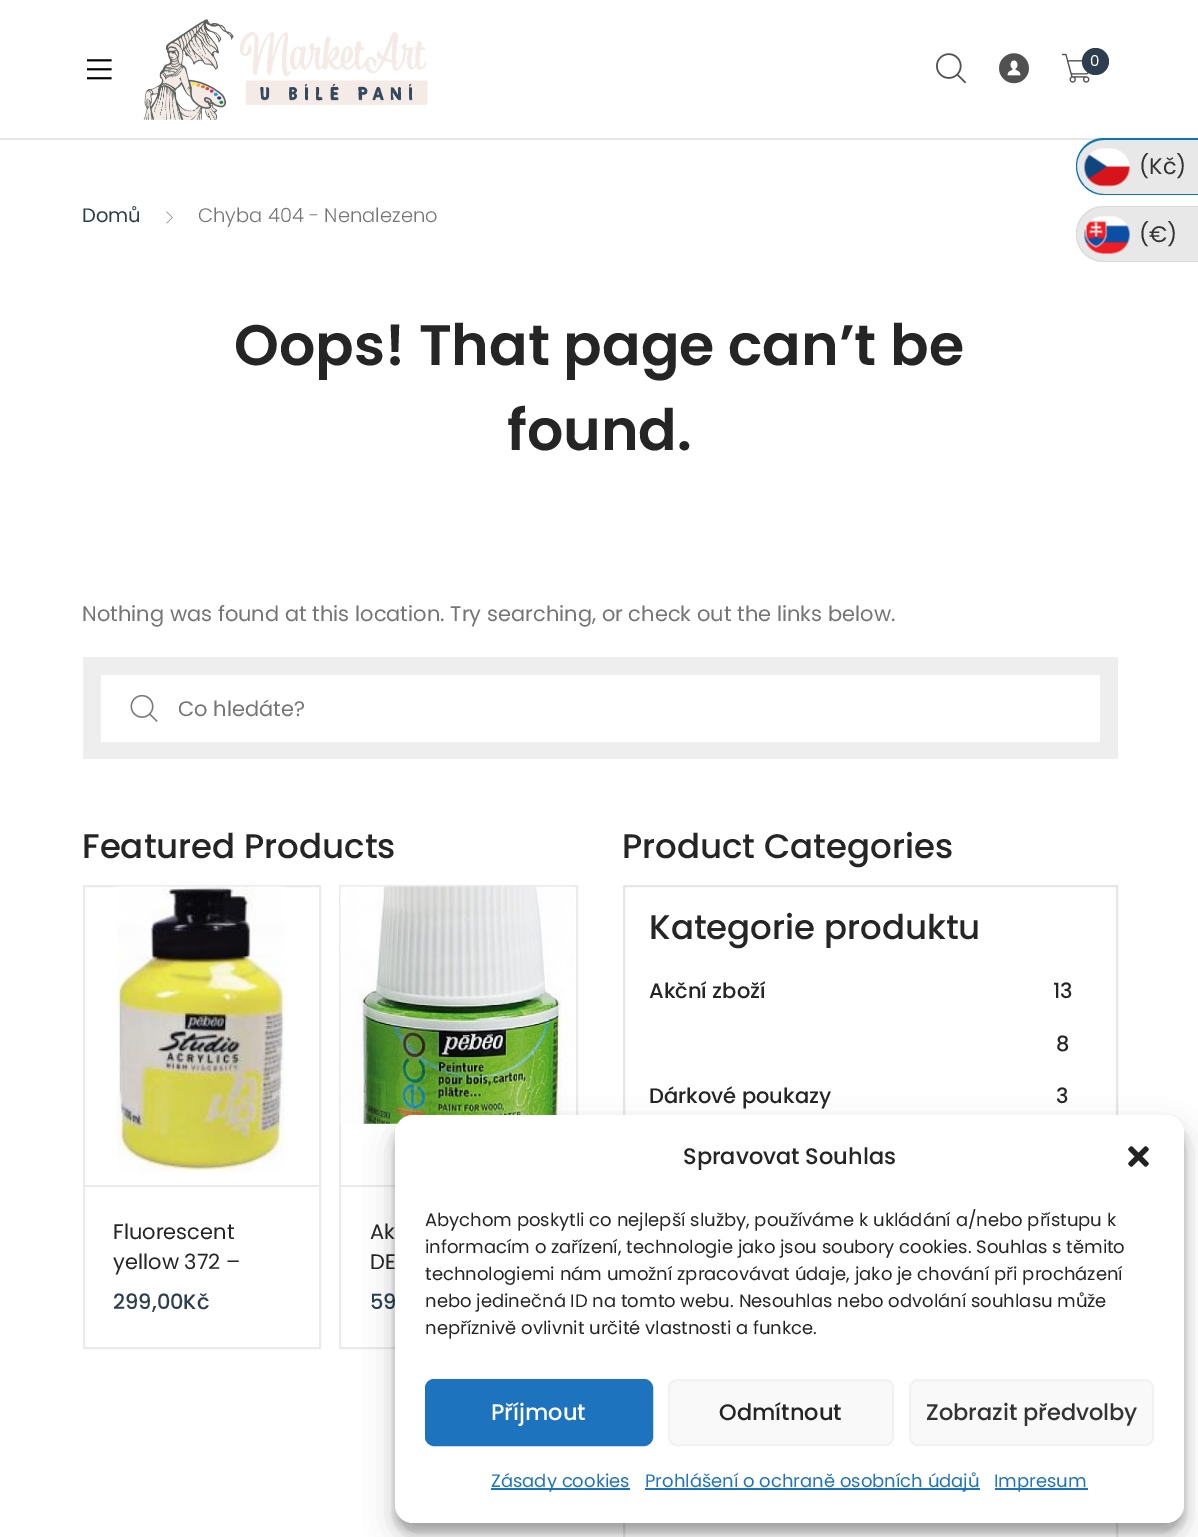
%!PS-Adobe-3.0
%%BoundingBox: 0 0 1198 1537
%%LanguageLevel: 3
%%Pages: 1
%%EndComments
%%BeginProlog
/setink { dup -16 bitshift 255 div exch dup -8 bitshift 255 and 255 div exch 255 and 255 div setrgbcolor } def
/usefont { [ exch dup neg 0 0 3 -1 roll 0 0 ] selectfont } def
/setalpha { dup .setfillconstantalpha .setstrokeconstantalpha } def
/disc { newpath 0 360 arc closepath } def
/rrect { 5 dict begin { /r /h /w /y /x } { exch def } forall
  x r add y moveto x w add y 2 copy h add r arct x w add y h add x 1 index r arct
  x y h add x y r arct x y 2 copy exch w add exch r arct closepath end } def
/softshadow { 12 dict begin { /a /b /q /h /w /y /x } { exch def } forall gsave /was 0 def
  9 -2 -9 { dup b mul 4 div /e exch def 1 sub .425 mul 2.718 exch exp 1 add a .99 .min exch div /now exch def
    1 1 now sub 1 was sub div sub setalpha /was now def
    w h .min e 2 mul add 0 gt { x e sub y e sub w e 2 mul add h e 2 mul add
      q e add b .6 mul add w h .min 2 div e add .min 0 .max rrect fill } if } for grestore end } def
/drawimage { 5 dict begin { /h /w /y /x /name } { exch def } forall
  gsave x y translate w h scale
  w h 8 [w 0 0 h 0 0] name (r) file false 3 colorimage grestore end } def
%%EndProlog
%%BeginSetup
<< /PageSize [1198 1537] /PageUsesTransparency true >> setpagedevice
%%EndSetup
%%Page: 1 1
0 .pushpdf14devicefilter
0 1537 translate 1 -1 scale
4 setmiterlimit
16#FFFFFF setink
0 0 1198 1537 rectfill
16#E6E6E6 setink
0 138 1104 2 rectfill
(img1.raw) 86 59 26 21 drawimage
(img2.raw) 143 19 285 101 drawimage
(img3.raw) 936 53 30 31 drawimage
(img4.raw) 999 53 30 31 drawimage
(img5.raw) 1062 53 28 30 drawimage
16#2C3E50 setink
1095.5 61.5 13.5 disc fill
/Poppins-Regular 15 usefont
16#FFFFFF setink
1090 66 moveto (0) show
/Poppins-Regular 19.5 usefont
16#2C3E50 setink
82 222 moveto (Domů) show
(img6.raw) 166 211 7 13 drawimage
/Poppins-Light 19.5 usefont
16#757575 setink
198 222 moveto (Chyba 404 - Nenalezeno) show
/Poppins-SemiBold 57 usefont
16#252525 setink
234 365 moveto (Oops! That page can’t be) show
507 450 moveto (found.) show
/Poppins-Regular 21 usefont
16#757575 setink
82 621 moveto (Nothing was found at this location. Try searching, or check out the links below.) show
16#EEEEEE setink
83 657 1035 102 rectfill
16#FFFFFF setink
101 675 999 67 rectfill
(img7.raw) 130 694 28 28 drawimage
gsave
179 693 882 32 rectclip
16#757575 setink
178 716 moveto (Co hledáte?) show
grestore
/Poppins-Medium 34 usefont
16#252525 setink
82 858 moveto (Featured Products) show
16#EBEBEB setink
2 setlinewidth
84 886 236 462 rectstroke
84 1185 236 2 rectfill
(img8.raw) 116 886 169 286 drawimage
/Poppins-Regular 21 usefont
16#252525 setink
113 1239 moveto (Fluorescent) show
113 1269 moveto (yellow 372 –) show
/Poppins-Medium 21 usefont
16#2C3E50 setink
113 1309 moveto (299,00Kč) show
16#EBEBEB setink
340 886 237 462 rectstroke
341 1185 54 2 rectfill
(img9.raw) 340 886 234 238 drawimage
/Poppins-Regular 21 usefont
16#252525 setink
370 1239 moveto (Ak) show
370 1269 moveto (DE) show
/Poppins-Medium 21 usefont
16#2C3E50 setink
370 1309 moveto (59) show
/Poppins-Medium 34 usefont
16#252525 setink
622 858 moveto (Product Categories) show
16#E6E6E6 setink
624 886 493 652 rectstroke
16#252525 setink
649 939 moveto (Kategorie produktu) show
/Poppins-Medium 21 usefont
[
    [(Akční zboží) 649 998]
    [(13) 1053 998]
    [(8) 1056 1051]
    [(Dárkové poukazy) 649 1103]
    [(3) 1056 1103]
] { aload pop moveto show } forall
16#E8E8E8 setink
1104 140 moveto 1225 140 lineto 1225 194 lineto 1104 194 lineto 1089 194 1077 182 1077 167 curveto 1077 152 1089 140 1104 140 curveto closepath fill
16#0D77AD setink
1104 138 moveto 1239 138 lineto 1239 195 lineto 1104 195 lineto 1088 195 1076 182 1076 166 curveto 1076 151 1088 138 1104 138 curveto closepath 1104 140 moveto 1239 140 lineto 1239 194 lineto 1104 194 lineto 1089 194 1077 181 1077 166 curveto 1077 152 1089 140 1104 140 curveto closepath eofill
(img10.raw) 1084 148 46 39 drawimage
/Poppins-Regular 22.5 usefont
16#333333 setink
1139 174 moveto (\(Kč\)) show
16#E8E8E8 setink
1104 207 moveto 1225 207 lineto 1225 261 lineto 1104 261 lineto 1089 261 1077 249 1077 234 curveto 1077 219 1089 207 1104 207 curveto closepath fill
16#DADADA setink
1104 206 moveto 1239 206 lineto 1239 262 lineto 1104 262 lineto 1088 262 1076 250 1076 234 curveto 1076 218 1088 206 1104 206 curveto closepath 1104 207 moveto 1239 207 lineto 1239 261 lineto 1104 261 lineto 1089 261 1077 249 1077 234 curveto 1077 219 1089 207 1104 207 curveto closepath eofill
(img11.raw) 1084 216 46 38 drawimage
16#333333 setink
1139 242 moveto (\(€\)) show
16#000000 setink
395 1124 789 408 18 4.5 0.23 softshadow
395 1130 789 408 18 15 0.19 softshadow
16#FFFFFF setink
395 1115 789 408 18 rrect fill
/Poppins-Medium 22.5 usefont
16#252525 setink
683 1164 moveto (Spravovat Souhlas) show
(img12.raw) 1128 1146 21 21 drawimage
/Poppins-Regular 18 usefont
[
    [(Abychom poskytli co nejlepší služby, používáme k ukládání a/nebo přístupu k) 425 1226]
    [(informacím o zařízení, technologie jako jsou soubory cookies. Souhlas s těmito) 425 1253]
    [(technologiemi nám umožní zpracovávat údaje, jako je chování při procházení) 425 1280]
    [(nebo jedinečná ID na tomto webu. Nesouhlas nebo odvolání souhlasu může) 425 1307]
    [(nepříznivě ovlivnit určité vlastnosti a funkce.) 425 1334]
] { aload pop moveto show } forall
16#1E73BE setink
426 1380 226 65 8 rrect gsave fill grestore
stroke
/Poppins-Medium 22.5 usefont
16#FFFFFF setink
491 1420 moveto (Příjmout) show
16#F9F9F9 setink
669 1380 224 65 8 rrect gsave fill grestore
16#F2F2F2 setink
stroke
16#252525 setink
719 1420 moveto (Odmítnout) show
16#F9F9F9 setink
910 1380 243 65 8 rrect gsave fill grestore
16#F2F2F2 setink
stroke
16#333333 setink
926 1420 moveto (Zobrazit předvolby) show
16#1E73BE setink
491 1488 139 2 rectfill
/Poppins-Regular 18 usefont
491 1487 moveto (Zásady cookies) show
645 1488 335 2 rectfill
645 1487 moveto (Prohlášení o ochraně osobních údajů) show
995 1488 93 2 rectfill
994 1487 moveto (Impresum) show
.poppdf14devicefilter showpage
%%EOF
